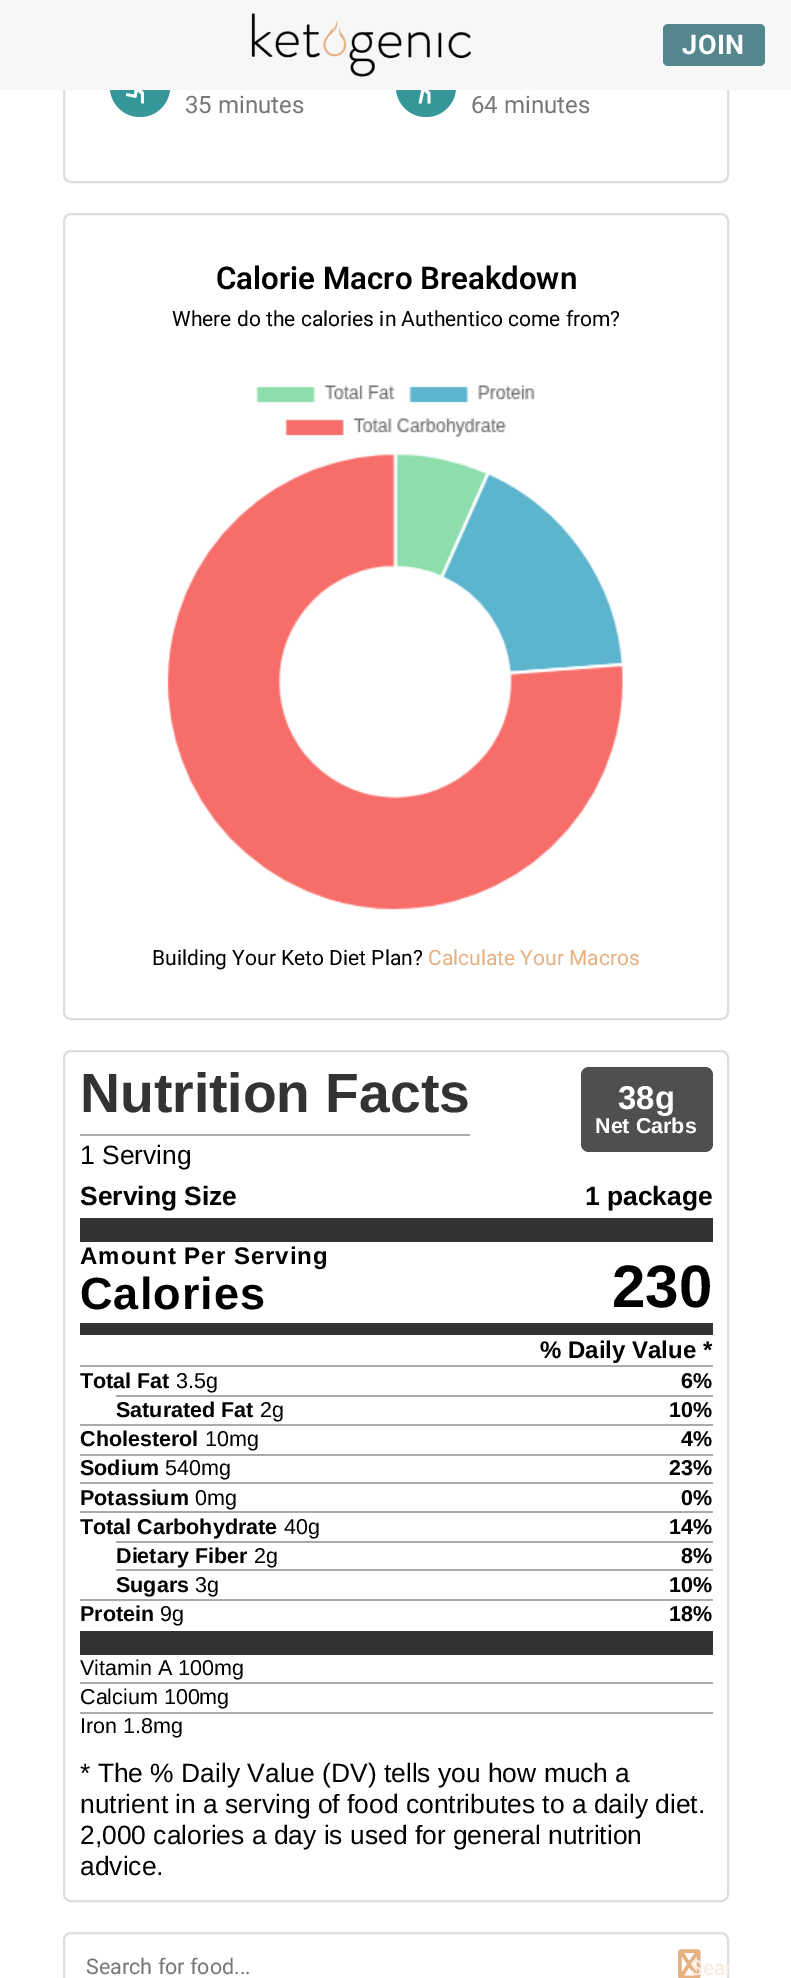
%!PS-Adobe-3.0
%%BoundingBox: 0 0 791 1978
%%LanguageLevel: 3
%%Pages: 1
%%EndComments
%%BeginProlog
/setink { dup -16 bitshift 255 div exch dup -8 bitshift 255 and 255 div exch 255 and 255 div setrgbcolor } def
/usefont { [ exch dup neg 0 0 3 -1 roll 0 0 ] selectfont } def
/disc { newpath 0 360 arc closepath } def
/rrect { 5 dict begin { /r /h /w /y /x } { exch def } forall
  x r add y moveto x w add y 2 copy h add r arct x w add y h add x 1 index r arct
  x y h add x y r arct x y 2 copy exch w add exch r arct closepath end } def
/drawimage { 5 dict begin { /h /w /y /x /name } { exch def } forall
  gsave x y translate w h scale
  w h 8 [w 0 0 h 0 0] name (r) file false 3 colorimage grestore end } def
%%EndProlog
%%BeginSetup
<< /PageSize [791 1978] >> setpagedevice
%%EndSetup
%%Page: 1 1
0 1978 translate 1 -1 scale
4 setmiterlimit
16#FFFFFF setink
0 0 791 1978 rectfill
16#DDDDDD setink
2 setlinewidth
64 -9 664 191 7 rrect stroke
16#35979A setink
140 87 30 disc fill
426 87 30 disc fill
16#F7F7F7 setink
0 0 791 90 rectfill
(img1.raw) 251 13 221 64 drawimage
16#53878D setink
663 24 102 42 5 rrect fill
/Roboto-Bold 27 usefont
16#FFFFFF setink
682 54 moveto 0.5 0 (JOIN) ashow
(img2.raw) 125 90 19 14 drawimage
/Roboto-Regular 24 usefont
16#777777 setink
185 113 moveto (35 minutes) show
(img3.raw) 418 90 13 14 drawimage
471 113 moveto (64 minutes) show
16#DDDDDD setink
64 214 664 805 7 rrect stroke
/Roboto-SemiBold 31.25 usefont
16#000000 setink
216 289 moveto (Calorie Macro Breakdown) show
/Roboto-Regular 21 usefont
172 326 moveto (Where do the calories in Authentico come from?) show
(img4.raw) 167 385 456 525 drawimage
152 965 moveto (Building Your Keto Diet Plan?) show
16#E6B081 setink
428 965 moveto (Calculate Your Macros) show
16#DDDDDD setink
64 1051 664 850 7 rrect stroke
16#AAAAAA setink
80 1134 390 2 rectfill
/LiberationSans-Bold 55.25 usefont
16#333333 setink
80 1112 moveto (Nutrition Facts) show
/LiberationSans-Regular 26.4 usefont
16#000000 setink
80 1164 moveto (1 Serving) show
16#4F4F4F setink
581 1067 132 85 8 rrect fill
/LiberationSans-Bold 33 usefont
16#FFFFFF setink
618 1109 moveto (38g) show
/LiberationSans-Bold 21.5 usefont
595 1133 moveto (Net Carbs) show
/LiberationSans-Bold 26.4 usefont
16#000000 setink
80 1205 moveto (Serving Size) show
585 1205 moveto (1 package) show
16#333333 setink
80 1218 633 24 rectfill
/LiberationSans-Bold 24 usefont
16#000000 setink
80 1264 moveto 1 0 (Amount Per Serving) ashow
/LiberationSans-Bold 45 usefont
80 1309 moveto 1 0 (Calories) ashow
/LiberationSans-Bold 60 usefont
612 1307 moveto (230) show
16#333333 setink
80 1323 633 12 rectfill
/LiberationSans-Bold 24 usefont
16#000000 setink
540 1358 moveto (% Daily Value *) show
16#AAAAAA setink
80 1365 633 2 rectfill
/LiberationSans-Bold 21.5 usefont
16#000000 setink
80 1388 moveto (Total Fat) show
/LiberationSans-Regular 21.5 usefont
176 1388 moveto (3.5g) show
/LiberationSans-Bold 21.5 usefont
681 1388 moveto (6%) show
16#AAAAAA setink
116 1395 597 2 rectfill
16#000000 setink
116 1417 moveto (Saturated Fat) show
/LiberationSans-Regular 21.5 usefont
260 1417 moveto (2g) show
/LiberationSans-Bold 21.5 usefont
669 1417 moveto (10%) show
16#AAAAAA setink
80 1424 633 2 rectfill
16#000000 setink
80 1446 moveto (Cholesterol) show
/LiberationSans-Regular 21.5 usefont
205 1446 moveto (10mg) show
/LiberationSans-Bold 21.5 usefont
681 1446 moveto (4%) show
16#AAAAAA setink
80 1454 633 2 rectfill
16#000000 setink
80 1475 moveto (Sodium) show
/LiberationSans-Regular 21.5 usefont
165 1475 moveto (540mg) show
/LiberationSans-Bold 21.5 usefont
669 1475 moveto (23%) show
16#AAAAAA setink
80 1482 633 2 rectfill
16#000000 setink
80 1505 moveto (Potassium) show
/LiberationSans-Regular 21.5 usefont
195 1505 moveto (0mg) show
/LiberationSans-Bold 21.5 usefont
681 1505 moveto (0%) show
16#AAAAAA setink
80 1511 633 2 rectfill
16#000000 setink
80 1534 moveto (Total Carbohydrate) show
/LiberationSans-Regular 21.5 usefont
284 1534 moveto (40g) show
/LiberationSans-Bold 21.5 usefont
669 1534 moveto (14%) show
16#AAAAAA setink
116 1541 597 2 rectfill
16#000000 setink
116 1563 moveto (Dietary Fiber) show
/LiberationSans-Regular 21.5 usefont
254 1563 moveto (2g) show
/LiberationSans-Bold 21.5 usefont
681 1563 moveto (8%) show
16#AAAAAA setink
116 1569 597 2 rectfill
16#000000 setink
116 1592 moveto (Sugars) show
/LiberationSans-Regular 21.5 usefont
195 1592 moveto (3g) show
/LiberationSans-Bold 21.5 usefont
669 1592 moveto (10%) show
16#AAAAAA setink
80 1599 633 2 rectfill
16#000000 setink
80 1621 moveto (Protein) show
/LiberationSans-Regular 21.5 usefont
160 1621 moveto (9g) show
/LiberationSans-Bold 21.5 usefont
669 1621 moveto (18%) show
16#333333 setink
80 1631 633 24 rectfill
/LiberationSans-Regular 21.5 usefont
16#000000 setink
80 1675 moveto (Vitamin A 100mg) show
16#AAAAAA setink
80 1682 633 2 rectfill
16#000000 setink
80 1704 moveto (Calcium 100mg) show
16#AAAAAA setink
80 1712 633 2 rectfill
16#000000 setink
80 1733 moveto (Iron 1.8mg) show
/LiberationSans-Regular 26.4 usefont
[
    [(* The % Daily Value \(DV\) tells you how much a) 80 1782]
    [(nutrient in a serving of food contributes to a daily diet.) 80 1813]
    [(2,000 calories a day is used for general nutrition) 80 1844]
    [(advice.) 80 1875]
] { aload pop moveto show } forall
16#DDDDDD setink
64 1933 664 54 7 rrect stroke
/Roboto-Regular 21.5 usefont
16#777777 setink
86 1974 moveto (Search for food...) show
(img5.raw) 678 1949 23 29 drawimage
gsave
660 1932 moveto 723 1932 lineto 726.5 1932 729 1934.5 729 1938 curveto 729 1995 lineto 729 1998.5 726.5 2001 723 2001 curveto 660 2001 lineto closepath clip newpath
/Roboto-Medium 21 usefont
16#F7ECE2 setink
690 1975 moveto (Sear) show
grestore
showpage
%%EOF
